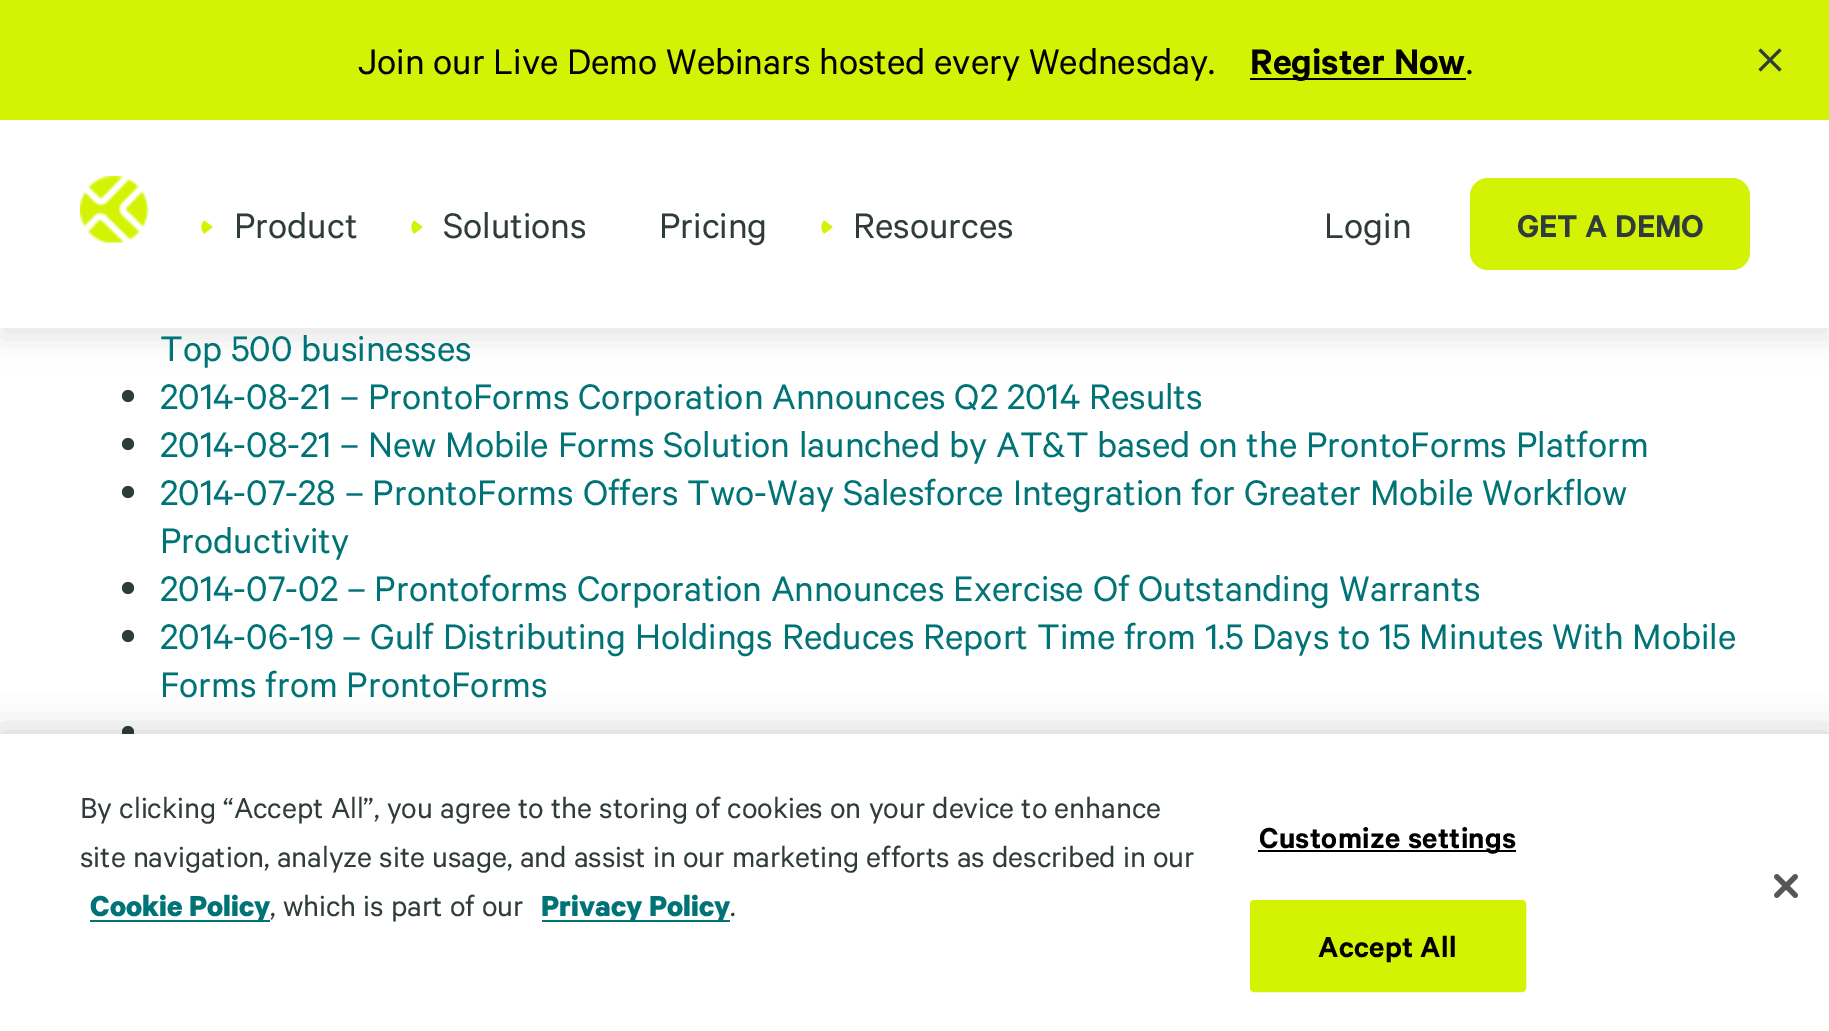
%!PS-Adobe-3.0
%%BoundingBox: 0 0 1829 1031
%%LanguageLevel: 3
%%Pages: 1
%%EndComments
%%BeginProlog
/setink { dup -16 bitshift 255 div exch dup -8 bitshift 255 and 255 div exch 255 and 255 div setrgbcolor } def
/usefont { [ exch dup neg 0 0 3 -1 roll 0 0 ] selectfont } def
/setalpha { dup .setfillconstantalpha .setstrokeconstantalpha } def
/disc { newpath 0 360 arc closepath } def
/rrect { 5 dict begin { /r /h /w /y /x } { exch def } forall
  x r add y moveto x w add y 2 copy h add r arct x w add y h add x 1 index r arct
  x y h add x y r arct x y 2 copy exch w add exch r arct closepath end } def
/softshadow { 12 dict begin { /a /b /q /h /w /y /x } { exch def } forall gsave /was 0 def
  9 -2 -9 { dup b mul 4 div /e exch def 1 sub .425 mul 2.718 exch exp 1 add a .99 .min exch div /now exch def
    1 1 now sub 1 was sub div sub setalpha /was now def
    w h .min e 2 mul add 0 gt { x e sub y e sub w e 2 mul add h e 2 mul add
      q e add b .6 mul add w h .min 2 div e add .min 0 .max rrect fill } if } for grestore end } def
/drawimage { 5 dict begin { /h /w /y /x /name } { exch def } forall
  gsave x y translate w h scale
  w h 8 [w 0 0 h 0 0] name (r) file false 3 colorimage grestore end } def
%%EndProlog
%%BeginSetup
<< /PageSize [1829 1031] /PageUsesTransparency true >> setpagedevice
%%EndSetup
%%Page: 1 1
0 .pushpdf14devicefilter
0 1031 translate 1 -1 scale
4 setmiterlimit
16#FFFFFF setink
0 0 1829 1031 rectfill
16#000000 setink
0 130 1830 208 0 14 0.1 softshadow
16#D4F203 setink
0 0 1829 120 rectfill
/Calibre-Regular 40 usefont
16#000000 setink
358 74 moveto (Join our Live Demo Webinars hosted every Wednesday.) show
1250 78 216 2 rectfill
/Calibre-SemiBold 40 usefont
1250 74 moveto (Register Now) show
/Calibre-Regular 40 usefont
1466 74 moveto (.) show
(img1.raw) 1758 48 24 24 drawimage
16#FFFFFF setink
0 120 1829 208 rectfill
(img2.raw) 80 176 69 67 drawimage
(img3.raw) 201 220 12 14 drawimage
16#2F3C3B setink
234 238 moveto (Product) show
(img3.raw) 411 220 12 14 drawimage
443 238 moveto (Solutions) show
659 238 moveto (Pricing) show
(img3.raw) 821 220 12 14 drawimage
853 238 moveto (Resources) show
1324 238 moveto (Login) show
16#D4F203 setink
1470 178 280 92 18 rrect fill
/Calibre-SemiBold 35.5 usefont
16#2F3C3B setink
1517 237 moveto (GET A DEMO) show
/Calibre-Regular 40 usefont
16#007377 setink
160 361 moveto (Top 500 businesses) show
16#2F3C3B setink
128 396 6 disc fill
16#007377 setink
160 409 moveto (2014-08-21 – ProntoForms Corporation Announces Q2 2014 Results) show
16#2F3C3B setink
128 444 6 disc fill
16#007377 setink
160 457 moveto (2014-08-21 – New Mobile Forms Solution launched by AT&T based on the ProntoForms Platform) show
16#2F3C3B setink
128 492 6 disc fill
16#007377 setink
160 505 moveto (2014-07-28 – ProntoForms Offers Two-Way Salesforce Integration for Greater Mobile Workflow) show
160 553 moveto (Productivity) show
16#2F3C3B setink
128 588 6 disc fill
16#007377 setink
160 601 moveto (2014-07-02 – Prontoforms Corporation Announces Exercise Of Outstanding Warrants) show
16#2F3C3B setink
128 636 6 disc fill
16#007377 setink
160 649 moveto (2014-06-19 – Gulf Distributing Holdings Reduces Report Time from 1.5 Days to 15 Minutes With Mobile) show
160 697 moveto (Forms from ProntoForms) show
16#2F3C3B setink
128 732 6 disc fill
16#000000 setink
0 734 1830 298 0 18 0.2 softshadow
16#FFFFFF setink
0 734 1829 297 rectfill
/Calibre-Regular 32.5 usefont
16#2F3C3B setink
80 818 moveto (By clicking “Accept All”, you agree to the storing of cookies on your device to enhance) show
80 867 moveto (site navigation, analyze site usage, and assist in our marketing efforts as described in our) show
16#007377 setink
90 920 180 2 rectfill
/Calibre-Bold 32.5 usefont
90 916 moveto (Cookie Policy) show
/Calibre-Regular 32.5 usefont
16#2F3C3B setink
270 916 moveto (, which is part of our) show
16#007377 setink
542 920 188 2 rectfill
/Calibre-Bold 32.5 usefont
541 916 moveto (Privacy Policy) show
/Calibre-Regular 32.5 usefont
16#2F3C3B setink
730 916 moveto (.) show
16#000000 setink
1258 850 258 2 rectfill
/Calibre-SemiBold 32.5 usefont
1259 848 moveto 0.3 0 (Customize settings) ashow
16#D3F303 setink
1251 901 274 90 3 rrect gsave fill grestore
2 setlinewidth
stroke
16#000000 setink
1318 957 moveto 0.3 0 (Accept All) ashow
(img4.raw) 1774 874 24 24 drawimage
.poppdf14devicefilter showpage
%%EOF
